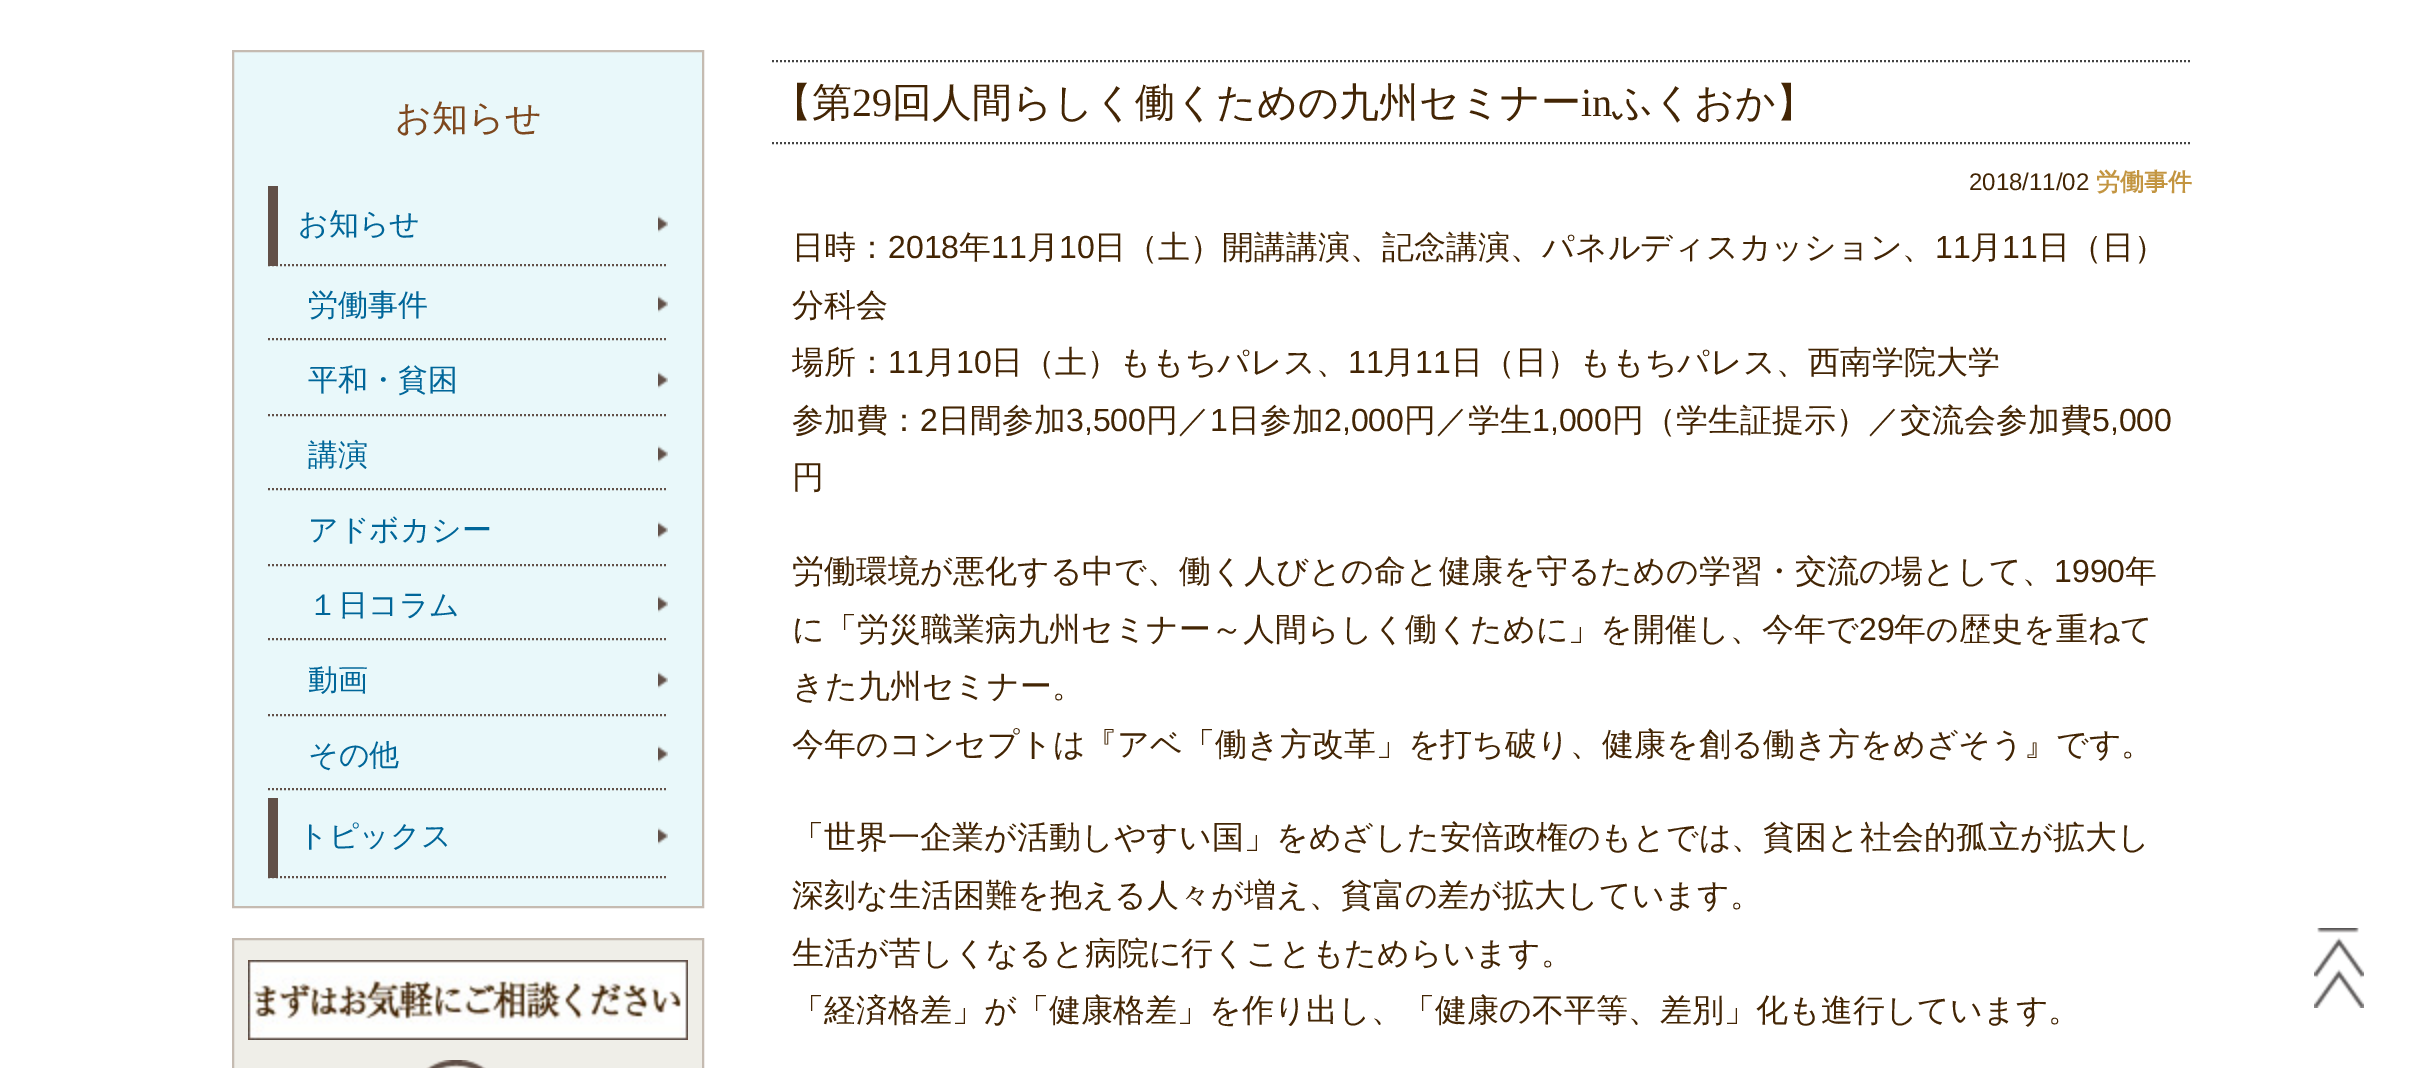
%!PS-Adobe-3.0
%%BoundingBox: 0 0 2423 1068
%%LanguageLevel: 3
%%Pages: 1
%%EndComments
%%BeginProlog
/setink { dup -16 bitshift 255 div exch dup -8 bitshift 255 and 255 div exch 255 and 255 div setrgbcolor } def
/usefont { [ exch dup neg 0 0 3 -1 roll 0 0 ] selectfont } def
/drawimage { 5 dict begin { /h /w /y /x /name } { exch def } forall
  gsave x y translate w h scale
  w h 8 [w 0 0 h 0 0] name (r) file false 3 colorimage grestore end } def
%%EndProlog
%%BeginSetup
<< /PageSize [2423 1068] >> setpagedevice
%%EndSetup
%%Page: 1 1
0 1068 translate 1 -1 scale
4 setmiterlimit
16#FFFFFF setink
0 0 2423 1068 rectfill
16#E9F8FA setink
233 51 moveto 703 51 lineto 703 907 lineto 233 907 lineto closepath gsave fill grestore
16#C5BBB1 setink
2 setlinewidth
stroke
/WenQuanYiZenHei-Medium 36 usefont
16#7E481E setink
395 130 moveto (お知らせ) show
(img1.raw) 658 215 10 18 drawimage
16#615048 setink
[2 2] 0 setdash
268 265 moveto 668 265 lineto stroke
268 186 10 80 rectfill
/WenQuanYiZenHei-Medium 30 usefont
16#006699 setink
298 234 moveto (お知らせ) show
(img1.raw) 658 295 10 18 drawimage
16#615048 setink
268 339 moveto 668 339 lineto stroke
16#006699 setink
308 315 moveto (労働事件) show
(img1.raw) 658 371 10 18 drawimage
16#615048 setink
268 415 moveto 668 415 lineto stroke
16#006699 setink
308 390 moveto (平和・貧困) show
(img1.raw) 658 445 10 18 drawimage
16#615048 setink
268 489 moveto 668 489 lineto stroke
16#006699 setink
308 465 moveto (講演) show
(img1.raw) 658 521 10 18 drawimage
16#615048 setink
268 565 moveto 668 565 lineto stroke
16#006699 setink
308 540 moveto (アドボカシー) show
(img1.raw) 658 595 10 18 drawimage
16#615048 setink
268 639 moveto 668 639 lineto stroke
16#006699 setink
308 615 moveto (１日コラム) show
(img1.raw) 658 671 10 18 drawimage
16#615048 setink
268 715 moveto 668 715 lineto stroke
16#006699 setink
308 690 moveto (動画) show
(img1.raw) 658 745 10 18 drawimage
16#615048 setink
268 789 moveto 668 789 lineto stroke
16#006699 setink
308 765 moveto (その他) show
(img1.raw) 658 827 10 18 drawimage
16#615048 setink
268 877 moveto 668 877 lineto stroke
268 798 10 80 rectfill
16#006699 setink
298 846 moveto (トピックス) show
16#EFEEE8 setink
233 939 moveto 703 939 lineto 703 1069 lineto 233 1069 lineto closepath gsave fill grestore
16#C5BBB1 setink
[] 0 setdash
stroke
(img2.raw) 248 960 440 80 drawimage
(img3.raw) 426 1060 60 8 drawimage
16#444444 setink
[2 2] 0 setdash
772 61 moveto 2192 61 lineto stroke
772 143 moveto 2192 143 lineto stroke
/WenQuanYiZenHei-Medium 40 usefont
16#432504 setink
772 116 moveto (【第) show
/LiberationSerif-Regular 40 usefont
852 116 moveto (29) show
/WenQuanYiZenHei-Medium 40 usefont
892 116 moveto (回人間らしく働くための九州セミナー) show
/LiberationSerif-Regular 40 usefont
1581 116 moveto (in) show
/WenQuanYiZenHei-Medium 40 usefont
1612 116 moveto (ふくおか】) show
/LiberationSans-Regular 24 usefont
1969 190 moveto (2018/11/02) show
/WenQuanYiZenHei-Bold 24 usefont
16#C39541 setink
2096 190 moveto (労働事件) show
/WenQuanYiZenHei-Medium 32 usefont
16#432504 setink
792 258 moveto (日時：) show
/LiberationSans-Regular 32 usefont
888 258 moveto (2018) show
/WenQuanYiZenHei-Medium 32 usefont
959 258 moveto (年) show
/LiberationSans-Regular 32 usefont
991 258 moveto (11) show
/WenQuanYiZenHei-Medium 32 usefont
1027 258 moveto (月) show
/LiberationSans-Regular 32 usefont
1059 258 moveto (10) show
/WenQuanYiZenHei-Medium 32 usefont
1094 258 moveto (日（土）開講講演、記念講演、パネルディスカッション、) show
/LiberationSans-Regular 32 usefont
1935 258 moveto (11) show
/WenQuanYiZenHei-Medium 32 usefont
1970 258 moveto (月) show
/LiberationSans-Regular 32 usefont
2002 258 moveto (11) show
/WenQuanYiZenHei-Medium 32 usefont
[
    [(日（日）) 2038 258]
    [(分科会) 792 316]
    [(場所：) 792 373]
] { aload pop moveto show } forall
/LiberationSans-Regular 32 usefont
888 373 moveto (11) show
/WenQuanYiZenHei-Medium 32 usefont
924 373 moveto (月) show
/LiberationSans-Regular 32 usefont
956 373 moveto (10) show
/WenQuanYiZenHei-Medium 32 usefont
991 373 moveto (日（土）ももちパレス、) show
/LiberationSans-Regular 32 usefont
1348 373 moveto (11) show
/WenQuanYiZenHei-Medium 32 usefont
1383 373 moveto (月) show
/LiberationSans-Regular 32 usefont
1415 373 moveto (11) show
/WenQuanYiZenHei-Medium 32 usefont
1451 373 moveto (日（日）ももちパレス、西南学院大学) show
792 431 moveto (参加費：) show
/LiberationSans-Regular 32 usefont
920 431 moveto (2) show
/WenQuanYiZenHei-Medium 32 usefont
938 431 moveto (日間参加) show
/LiberationSans-Regular 32 usefont
1066 431 moveto (3,500) show
/WenQuanYiZenHei-Medium 32 usefont
1146 431 moveto (円／) show
/LiberationSans-Regular 32 usefont
1210 431 moveto (1) show
/WenQuanYiZenHei-Medium 32 usefont
1228 431 moveto (日参加) show
/LiberationSans-Regular 32 usefont
1324 431 moveto (2,000) show
/WenQuanYiZenHei-Medium 32 usefont
1404 431 moveto (円／学生) show
/LiberationSans-Regular 32 usefont
1532 431 moveto (1,000) show
/WenQuanYiZenHei-Medium 32 usefont
1612 431 moveto (円（学生証提示）／交流会参加費) show
/LiberationSans-Regular 32 usefont
2092 431 moveto (5,000) show
/WenQuanYiZenHei-Medium 32 usefont
792 488 moveto (円) show
792 582 moveto (労働環境が悪化する中で、働く人びとの命と健康を守るための学習・交流の場として、) show
/LiberationSans-Regular 32 usefont
2054 582 moveto (1990) show
/WenQuanYiZenHei-Medium 32 usefont
2125 582 moveto (年) show
792 640 moveto (に「労災職業病九州セミナー～人間らしく働くために」を開催し、今年で) show
/LiberationSans-Regular 32 usefont
1859 640 moveto (29) show
/WenQuanYiZenHei-Medium 32 usefont
[
    [(年の歴史を重ねて) 1894 640]
    [(きた九州セミナー。) 792 697]
    [(今年のコンセプトは『アベ「働き方改革」を打ち破り、健康を創る働き方をめざそう』です。) 792 755]
    [(「世界一企業が活動しやすい国」をめざした安倍政権のもとでは、貧困と社会的孤立が拡大し) 792 848]
    [(深刻な生活困難を抱える人々が増え、貧富の差が拡大しています。) 792 906]
    [(生活が苦しくなると病院に行くこともためらいます。) 792 964]
    [(「経済格差」が「健康格差」を作り出し、「健康の不平等、差別」化も進行しています。) 792 1021]
] { aload pop moveto show } forall
(img4.raw) 2314 928 50 80 drawimage
showpage
%%EOF
